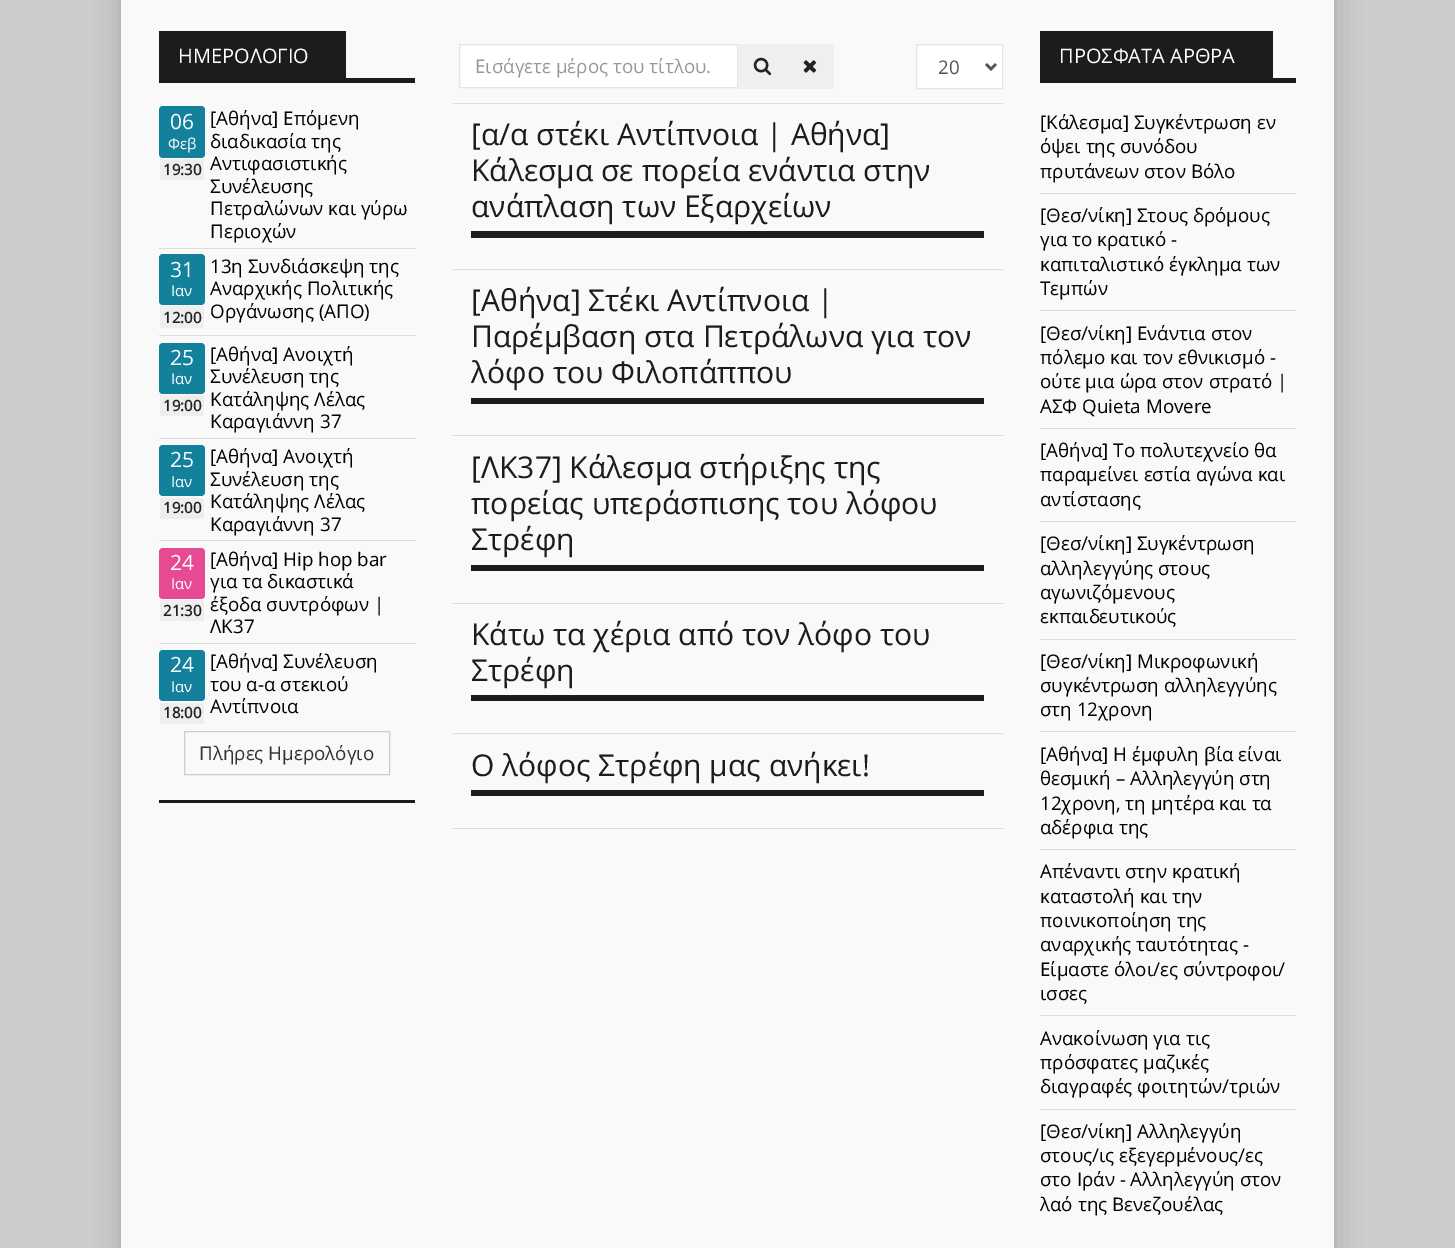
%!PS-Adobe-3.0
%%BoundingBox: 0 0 1455 1248
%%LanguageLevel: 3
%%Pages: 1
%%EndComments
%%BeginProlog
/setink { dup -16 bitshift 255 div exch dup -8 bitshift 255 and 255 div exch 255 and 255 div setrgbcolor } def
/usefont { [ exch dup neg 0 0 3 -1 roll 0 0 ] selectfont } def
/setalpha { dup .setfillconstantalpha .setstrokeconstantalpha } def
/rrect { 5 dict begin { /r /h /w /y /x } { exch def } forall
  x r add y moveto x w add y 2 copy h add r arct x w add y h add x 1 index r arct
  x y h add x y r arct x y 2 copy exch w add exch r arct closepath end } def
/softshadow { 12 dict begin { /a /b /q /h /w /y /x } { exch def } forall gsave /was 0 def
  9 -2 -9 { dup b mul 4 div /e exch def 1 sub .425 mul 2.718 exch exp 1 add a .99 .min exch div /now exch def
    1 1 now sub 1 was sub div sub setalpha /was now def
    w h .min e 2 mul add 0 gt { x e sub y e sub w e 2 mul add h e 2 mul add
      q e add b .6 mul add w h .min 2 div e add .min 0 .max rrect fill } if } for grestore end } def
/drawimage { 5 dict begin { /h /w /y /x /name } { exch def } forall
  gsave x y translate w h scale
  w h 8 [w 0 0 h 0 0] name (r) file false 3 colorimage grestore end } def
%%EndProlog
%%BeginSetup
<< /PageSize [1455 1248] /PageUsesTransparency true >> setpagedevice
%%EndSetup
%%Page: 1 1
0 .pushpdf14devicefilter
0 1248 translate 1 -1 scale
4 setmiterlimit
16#CCCCCC setink
0 0 1455 1248 rectfill
16#000000 setink
121 -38 1213 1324 0 12.5 0.19 softshadow
[
    [121 0 1213 1248 16#F9F9F9]
    [159 800 256 3 16#1C1C1C]
    [159 78 256 5 16#1C1C1C]
    [159 31 187 47 16#1C1C1C]
] { aload pop setink rectfill } forall
/OpenSans-Regular 20 usefont
16#FFFFFF setink
178 63 moveto (ΗΜΕΡΟΛΟΓΙΟ) show
16#13819C setink
159 106 46 52 4 rrect fill
/OpenSans-Regular 21 usefont
16#FFFFFF setink
170 129 moveto (06) show
/OpenSans-Regular 15 usefont
168 149 moveto (Φεβ) show
16#EEEEEE setink
160 159 44 21 rectfill
/OpenSans-Bold 15 usefont
16#222222 setink
163 175 moveto (19:30) show
/OpenSans-Regular 18.75 usefont
16#000000 setink
[
    [([Αθήνα] Επόμενη) 210 125]
    [(διαδικασία της) 210 148]
    [(Αντιφασιστικής) 210 170]
    [(Συνέλευσης) 210 193]
    [(Πετραλώνων και γύρω) 210 215]
    [(Περιοχών) 210 238]
] { aload pop moveto show } forall
16#DDDDDD setink
159 248 257 1 rectfill
16#13819C setink
159 254 46 51 4 rrect fill
/OpenSans-Regular 21 usefont
16#FFFFFF setink
170 277 moveto (31) show
/OpenSans-Regular 15 usefont
171 296 moveto (Ιαν) show
16#EEEEEE setink
160 306 44 22 rectfill
/OpenSans-Bold 15 usefont
16#222222 setink
163 323 moveto (12:00) show
/OpenSans-Regular 18.75 usefont
16#000000 setink
[
    [(13η Συνδιάσκεψη της) 210 273]
    [(Αναρχικής Πολιτικής) 210 295]
    [(Οργάνωσης \(ΑΠΟ\)) 210 318]
] { aload pop moveto show } forall
16#DDDDDD setink
159 335 257 1 rectfill
16#13819C setink
159 343 46 51 4 rrect fill
/OpenSans-Regular 21 usefont
16#FFFFFF setink
170 365 moveto (25) show
/OpenSans-Regular 15 usefont
171 384 moveto (Ιαν) show
16#EEEEEE setink
160 395 44 21 rectfill
/OpenSans-Bold 15 usefont
16#222222 setink
163 411 moveto (19:00) show
/OpenSans-Regular 18.75 usefont
16#000000 setink
[
    [([Αθήνα] Ανοιχτή) 210 361]
    [(Συνέλευση της) 210 383]
    [(Κατάληψης Λέλας) 210 406]
    [(Καραγιάννη 37) 210 428]
] { aload pop moveto show } forall
16#DDDDDD setink
159 438 257 1 rectfill
16#13819C setink
159 445 46 51 4 rrect fill
/OpenSans-Regular 21 usefont
16#FFFFFF setink
170 467 moveto (25) show
/OpenSans-Regular 15 usefont
171 487 moveto (Ιαν) show
16#EEEEEE setink
160 498 44 21 rectfill
/OpenSans-Bold 15 usefont
16#222222 setink
163 513 moveto (19:00) show
/OpenSans-Regular 18.75 usefont
16#000000 setink
[
    [([Αθήνα] Ανοιχτή) 210 463]
    [(Συνέλευση της) 210 486]
    [(Κατάληψης Λέλας) 210 508]
    [(Καραγιάννη 37) 210 531]
] { aload pop moveto show } forall
16#DDDDDD setink
159 540 257 1 rectfill
16#E64A93 setink
159 548 46 51 4 rrect fill
/OpenSans-Regular 21 usefont
16#FFFFFF setink
170 570 moveto (24) show
/OpenSans-Regular 15 usefont
171 589 moveto (Ιαν) show
16#EEEEEE setink
160 600 44 21 rectfill
/OpenSans-Bold 15 usefont
16#222222 setink
163 616 moveto (21:30) show
/OpenSans-Regular 18.75 usefont
16#000000 setink
[
    [([Αθήνα] Hip hop bar) 210 566]
    [(για τα δικαστικά) 210 588]
    [(έξοδα συντρόφων |) 210 611]
    [(ΛΚ37) 210 633]
] { aload pop moveto show } forall
16#DDDDDD setink
159 643 257 1 rectfill
16#13819C setink
159 650 46 51 4 rrect fill
/OpenSans-Regular 21 usefont
16#FFFFFF setink
170 672 moveto (24) show
/OpenSans-Regular 15 usefont
171 692 moveto (Ιαν) show
16#EEEEEE setink
160 703 44 21 rectfill
/OpenSans-Bold 15 usefont
16#222222 setink
163 718 moveto (18:00) show
/OpenSans-Regular 18.75 usefont
16#000000 setink
[
    [([Αθήνα] Συνέλευση) 210 668]
    [(του α-α στεκιού) 210 691]
    [(Αντίπνοια) 210 713]
] { aload pop moveto show } forall
16#CCCCCC setink
184.5 731.5 205 43 rectstroke
16#333333 setink
199 760 moveto (Πλήρες Ημερολόγιο) show
16#FFFFFF setink
459.5 44.5 moveto 737.5 44.5 lineto 737.5 87.5 lineto 459.5 87.5 lineto closepath gsave fill grestore
16#E4E4E4 setink
stroke
16#999999 setink
475 73 moveto (Εισάγετε μέρος του τίτλου.) show
16#EFEFEF setink
738 44 48 45 rectfill
(img1.raw) 753 57 19 19 drawimage
786 44 moveto 829 44 lineto 832 44 834 46 834 49 curveto 834 84 lineto 834 87 832 89 829 89 curveto 786 89 lineto closepath fill
(img2.raw) 803 60 14 13 drawimage
16#FFFFFF setink
916.5 44.5 moveto 1002.5 44.5 lineto 1002.5 88.5 lineto 916.5 88.5 lineto closepath gsave fill grestore
16#E4E4E4 setink
stroke
16#555555 setink
2.5 setlinewidth
986 64 moveto 991 69 lineto 996 64 lineto stroke
938 74 moveto (20) show
[
    [453 103 550 1 16#DDDDDD]
    [453 269 550 1 16#DDDDDD]
    [471 231 513 7 16#1C1C1C]
] { aload pop setink rectfill } forall
/OpenSans-Regular 30 usefont
[
    [([α/α στέκι Αντίπνοια | Αθήνα]) 471 145]
    [(Κάλεσμα σε πορεία ενάντια στην) 471 181]
    [(ανάπλαση των Εξαρχείων) 471 217]
] { aload pop moveto show } forall
16#DDDDDD setink
453 435 550 1 rectfill
16#1C1C1C setink
471 398 513 6 rectfill
[
    [([Αθήνα] Στέκι Αντίπνοια |) 471 311]
    [(Παρέμβαση στα Πετράλωνα για τον) 471 347]
    [(λόφο του Φιλοπάππου) 471 383]
] { aload pop moveto show } forall
16#DDDDDD setink
453 603 550 1 rectfill
16#1C1C1C setink
471 565 513 6 rectfill
[
    [([ΛΚ37] Κάλεσμα στήριξης της) 471 478]
    [(πορείας υπεράσπισης του λόφου) 471 514]
    [(Στρέφη) 471 550]
] { aload pop moveto show } forall
16#DDDDDD setink
453 733 550 1 rectfill
16#1C1C1C setink
471 695 513 6 rectfill
471 645 moveto (Kάτω τα χέρια από τον λόφο του) show
471 681 moveto (Στρέφη) show
16#DDDDDD setink
453 828 550 1 rectfill
16#1C1C1C setink
471 790 513 6 rectfill
471 776 moveto (Ο λόφος Στρέφη μας ανήκει!) show
1040 78 256 5 rectfill
1040 31 233 47 rectfill
/OpenSans-Regular 20 usefont
16#FFFFFF setink
1059 63 moveto (ΠΡΟΣΦΑΤΑ ΑΡΘΡΑ) show
16#DDDDDD setink
1040 193 256 1 rectfill
/OpenSans-Regular 18.75 usefont
16#000000 setink
[
    [([Κάλεσμα] Συγκέντρωση εν) 1040 129]
    [(όψει της συνόδου) 1040 153]
    [(πρυτάνεων στον Βόλο) 1040 178]
] { aload pop moveto show } forall
16#DDDDDD setink
1040 310 256 1 rectfill
16#000000 setink
[
    [([Θεσ/νίκη] Στους δρόμους) 1040 222]
    [(για το κρατικό -) 1040 246]
    [(καπιταλιστικό έγκλημα των) 1040 271]
    [(Τεμπών) 1040 295]
] { aload pop moveto show } forall
16#DDDDDD setink
1040 428 256 1 rectfill
16#000000 setink
[
    [([Θεσ/νίκη] Ενάντια στον) 1040 340]
    [(πόλεμο και τον εθνικισμό -) 1040 364]
    [(ούτε μια ώρα στον στρατό |) 1040 388]
    [(ΑΣΦ Quieta Movere) 1040 413]
] { aload pop moveto show } forall
16#DDDDDD setink
1040 521 256 1 rectfill
16#000000 setink
[
    [([Αθήνα] Το πολυτεχνείο θα) 1040 457]
    [(παραμείνει εστία αγώνα και) 1040 481]
    [(αντίστασης) 1040 506]
] { aload pop moveto show } forall
16#DDDDDD setink
1040 639 256 1 rectfill
16#000000 setink
[
    [([Θεσ/νίκη] Συγκέντρωση) 1040 550]
    [(αλληλεγγύης στους) 1040 575]
    [(αγωνιζόμενους) 1040 599]
    [(εκπαιδευτικούς) 1040 623]
] { aload pop moveto show } forall
16#DDDDDD setink
1040 731 256 1 rectfill
16#000000 setink
[
    [([Θεσ/νίκη] Μικροφωνική) 1040 668]
    [(συγκέντρωση αλληλεγγύης) 1040 692]
    [(στη 12χρονη) 1040 716]
] { aload pop moveto show } forall
16#DDDDDD setink
1040 849 256 1 rectfill
16#000000 setink
[
    [([Αθήνα] Η έμφυλη βία είναι) 1040 761]
    [(θεσμική – Αλληλεγγύη στη) 1040 785]
    [(12χρονη, τη μητέρα και τα) 1040 810]
    [(αδέρφια της) 1040 834]
] { aload pop moveto show } forall
16#DDDDDD setink
1040 1015 256 1 rectfill
16#000000 setink
[
    [(Απέναντι στην κρατική) 1040 878]
    [(καταστολή και την) 1040 903]
    [(ποινικοποίηση της) 1040 927]
    [(αναρχικής ταυτότητας -) 1040 951]
    [(Είμαστε όλοι/ες σύντροφοι/) 1040 976]
    [(ισσες) 1040 1000]
] { aload pop moveto show } forall
16#DDDDDD setink
1040 1109 256 1 rectfill
16#000000 setink
[
    [(Ανακοίνωση για τις) 1040 1045]
    [(πρόσφατες μαζικές) 1040 1069]
    [(διαγραφές φοιτητών/τριών) 1040 1093]
    [([Θεσ/νίκη] Αλληλεγγύη) 1040 1138]
    [(στους/ις εξεγερμένους/ες) 1040 1162]
    [(στο Ιράν - Αλληλεγγύη στον) 1040 1186]
    [(λαό της Βενεζουέλας) 1040 1211]
] { aload pop moveto show } forall
.poppdf14devicefilter showpage
%%EOF
